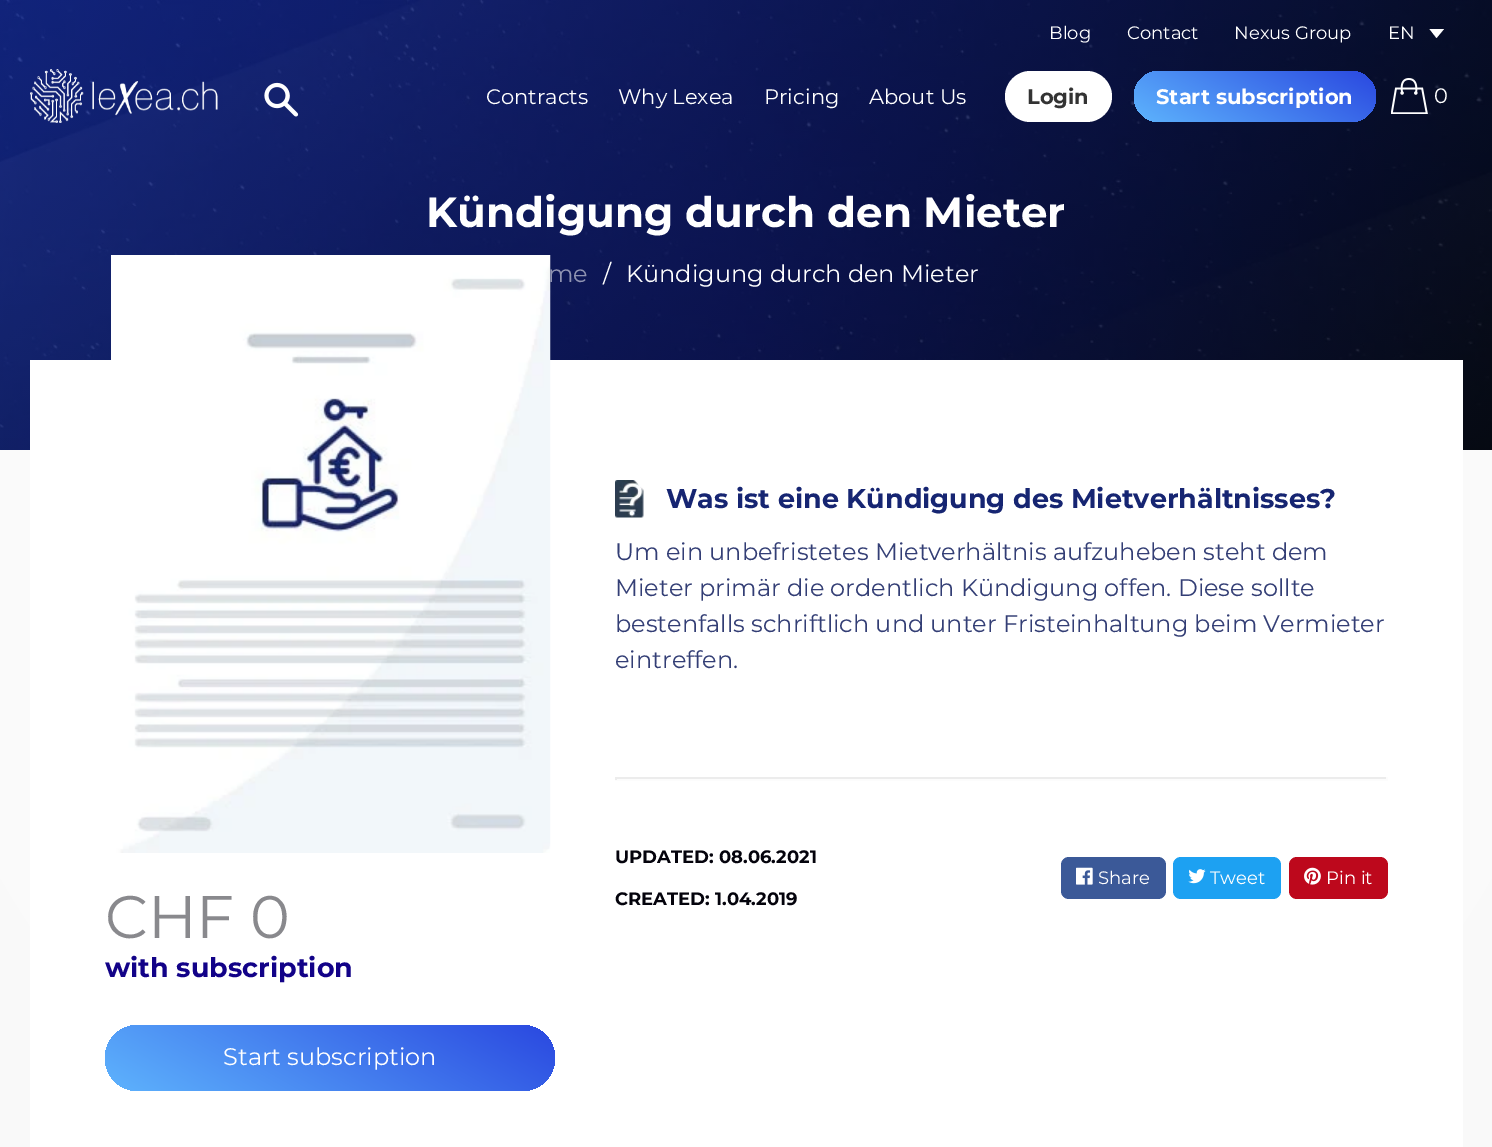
%!PS-Adobe-3.0
%%BoundingBox: 0 0 1492 1147
%%LanguageLevel: 3
%%Pages: 1
%%EndComments
%%BeginProlog
/setink { dup -16 bitshift 255 div exch dup -8 bitshift 255 and 255 div exch 255 and 255 div setrgbcolor } def
/usefont { [ exch dup neg 0 0 3 -1 roll 0 0 ] selectfont } def
/rrect { 5 dict begin { /r /h /w /y /x } { exch def } forall
  x r add y moveto x w add y 2 copy h add r arct x w add y h add x 1 index r arct
  x y h add x y r arct x y 2 copy exch w add exch r arct closepath end } def
/drawimage { 5 dict begin { /h /w /y /x /name } { exch def } forall
  gsave x y translate w h scale
  w h 8 [w 0 0 h 0 0] name (r) file false 3 colorimage grestore end } def
%%EndProlog
%%BeginSetup
<< /PageSize [1492 1147] >> setpagedevice
%%EndSetup
%%Page: 1 1
0 1147 translate 1 -1 scale
4 setmiterlimit
16#FFFFFF setink
0 0 1492 1147 rectfill
(img4.raw) 0 0 1492 450 drawimage
/Montserrat-Regular 18 usefont
[
    [(Blog) 1049 39]
    [(Contact) 1127 39]
    [(Nexus Group) 1234 39]
    [(EN) 1388 39]
] { aload pop moveto show } forall
1436.5 38 moveto 1444 29 lineto 1429.5 29 lineto closepath eofill
(img1.raw) 30 69 188 54 drawimage
(img2.raw) 264 82 35 35 drawimage
/Montserrat-Regular 21 usefont
[
    [(Contracts) 486 104]
    [(Why Lexea) 618 104]
    [(Pricing) 764 104]
    [(About Us) 869 104]
] { aload pop moveto show } forall
1005 71 107 51 25.5 rrect fill
/Montserrat-Bold 21 usefont
16#333333 setink
1027 104 moveto (Login) show
gsave 1134 71 242 51 25.5 rrect clip newpath
<< /ShadingType 2 /ColorSpace /DeviceRGB /Coords [1296 25 1214 167] /Extend [true true] /Function << /FunctionType 2 /Domain [0 1] /C0 [0.165 0.282 0.878] /C1 [0.365 0.702 0.992] /N 1 >> >> shfill grestore
16#FFFFFF setink
1156 104 moveto (Start subscription) show
(img3.raw) 1391 78 37 36 drawimage
/Montserrat-Regular 21 usefont
1434 103 moveto (0) show
/Montserrat-Bold 42 usefont
426 227 moveto (Kündigung durch den Mieter) show
/Montserrat-Regular 24 usefont
16#9094B2 setink
548 282 moveto (me) show
16#FFFFFF setink
603 282 moveto (/) show
626 282 moveto (Kündigung durch den Mieter) show
gsave 0 450 moveto 1492 450 lineto 1492 1147 lineto 0 1147 lineto closepath clip newpath 746 450 translate 1376 1376 scale
<< /ShadingType 3 /ColorSpace /DeviceRGB /Coords [0 0 0 0 0 1] /Extend [true true] /Function << /FunctionType 2 /Domain [0 1] /C0 [1 1 1] /C1 [0.969 0.969 0.969] /N 1 >> >> shfill grestore
30 360 1433 787 rectfill
(img5.raw) 615 480 29 38 drawimage
/Montserrat-Bold 27 usefont
16#162572 setink
666 508 moveto (Was ist eine Kündigung des Mietverhältnisses?) show
/Montserrat-Regular 24 usefont
16#333E75 setink
[
    [(Um ein unbefristetes Mietverhältnis aufzuheben steht dem) 615 560]
    [(Mieter primär die ordentlich Kündigung offen. Diese sollte) 615 596]
    [(bestenfalls schriftlich und unter Fristeinhaltung beim Vermieter) 615 632]
    [(eintreffen.) 615 668]
] { aload pop moveto show } forall
[
    [615 777 773 2 16#ECECEC]
    [1386 777 2 3 16#FCFCFC]
    [615 779 773 2 16#FCFCFC]
    [615 777 2 3 16#ECECEC]
] { aload pop setink rectfill } forall
/Montserrat-Bold 18 usefont
16#04030C setink
615 863 moveto (UPDATED: 08.06.2021) show
615 905 moveto (CREATED: 1.04.2019) show
16#3B5998 setink
1061 857 105 42 8 rrect fill
(img6.raw) 1076 867 17 18 drawimage
/Montserrat-Regular 18 usefont
16#FFFFFF setink
1098 884 moveto (Share) show
16#1DA1F2 setink
1173 857 108 42 8 rrect fill
(img7.raw) 1188 869 18 15 drawimage
16#FFFFFF setink
1210 884 moveto (Tweet) show
16#BD081C setink
1289 857 99 42 8 rrect fill
(img8.raw) 1304 867 17 18 drawimage
16#FFFFFF setink
1326 884 moveto (Pin it) show
(img9.raw) 111 255 440 598 drawimage
/Montserrat-Regular 60 usefont
16#89898D setink
105 938 moveto (CHF 0) show
/Montserrat-Bold 27 usefont
16#120288 setink
105 977 moveto (with subscription) show
gsave 105 1025 450 66 33 rrect clip newpath
<< /ShadingType 2 /ColorSpace /DeviceRGB /Coords [401 935 259 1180] /Extend [true true] /Function << /FunctionType 2 /Domain [0 1] /C0 [0.165 0.282 0.878] /C1 [0.369 0.702 0.992] /N 1 >> >> shfill grestore
/Montserrat-Regular 24 usefont
16#FFFFFF setink
223 1065 moveto (Start subscription) show
showpage
%%EOF
